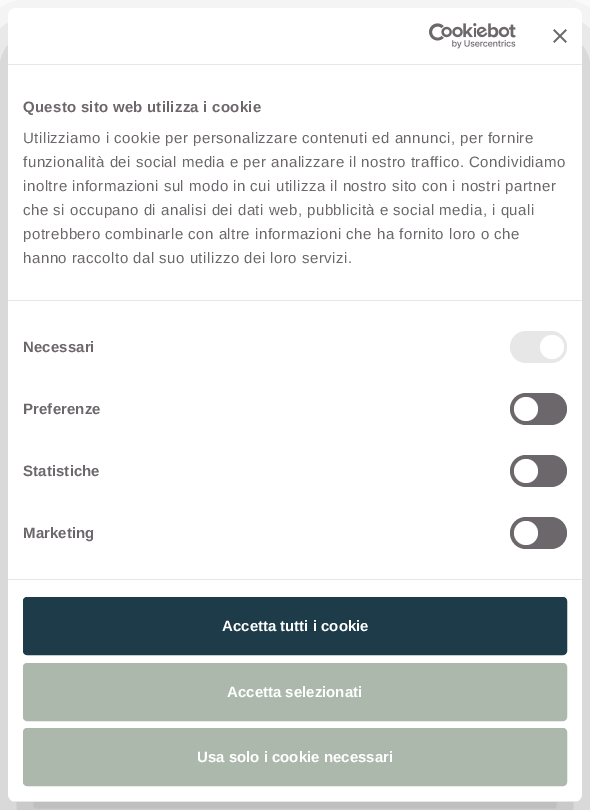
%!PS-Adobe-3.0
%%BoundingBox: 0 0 590 810
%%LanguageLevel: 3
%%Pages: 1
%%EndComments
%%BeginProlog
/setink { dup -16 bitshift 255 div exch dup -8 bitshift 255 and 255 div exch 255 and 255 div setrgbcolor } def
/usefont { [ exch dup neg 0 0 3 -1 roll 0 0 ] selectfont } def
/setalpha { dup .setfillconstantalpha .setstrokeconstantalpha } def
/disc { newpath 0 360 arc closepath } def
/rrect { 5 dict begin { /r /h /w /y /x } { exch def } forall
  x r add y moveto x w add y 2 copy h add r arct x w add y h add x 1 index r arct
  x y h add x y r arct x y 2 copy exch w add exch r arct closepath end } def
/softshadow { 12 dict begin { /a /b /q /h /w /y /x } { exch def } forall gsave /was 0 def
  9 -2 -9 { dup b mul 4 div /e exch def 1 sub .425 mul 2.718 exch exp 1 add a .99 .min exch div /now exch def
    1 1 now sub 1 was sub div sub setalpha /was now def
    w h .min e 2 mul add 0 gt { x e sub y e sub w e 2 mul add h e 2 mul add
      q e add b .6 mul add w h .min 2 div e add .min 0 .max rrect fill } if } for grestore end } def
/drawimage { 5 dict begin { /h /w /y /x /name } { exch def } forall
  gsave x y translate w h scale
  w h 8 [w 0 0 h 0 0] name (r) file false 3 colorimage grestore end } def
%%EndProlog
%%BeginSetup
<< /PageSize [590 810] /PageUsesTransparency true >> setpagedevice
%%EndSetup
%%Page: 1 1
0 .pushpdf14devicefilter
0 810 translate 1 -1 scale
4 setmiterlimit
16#FFFFFF setink
0 0 590 810 rectfill
16#000000 setink
8 40 574 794 8 34 0.3 softshadow
16#FFFFFF setink
8 8 574 794 8 rrect fill
16#E7E7E7 setink
8 64 574 1 rectfill
(img1.raw) 429 23 87 26 drawimage
(img2.raw) 553 29 14 14 drawimage
8 300 574 1 rectfill
/LiberationSans-Bold 15 usefont
16#6B676B setink
23 112 moveto 0.25 0 (Questo sito web utilizza i cookie) ashow
/LiberationSans-Regular 15 usefont
23 143 moveto 0.5 0 (Utilizziamo i cookie per personalizzare contenuti ed annunci, per fornire) ashow
23 167 moveto 0.5 0 (funzionalità dei social media e per analizzare il nostro traffico. Condividiamo) ashow
23 191 moveto 0.5 0 (inoltre informazioni sul modo in cui utilizza il nostro sito con i nostri partner) ashow
23 215 moveto 0.5 0 (che si occupano di analisi dei dati web, pubblicità e social media, i quali) ashow
23 239 moveto 0.5 0 (potrebbero combinarle con altre informazioni che ha fornito loro o che) ashow
23 263 moveto 0.5 0 (hanno raccolto dal suo utilizzo dei loro servizi.) ashow
16#E7E7E7 setink
8 579 574 1 rectfill
/LiberationSans-Bold 15 usefont
16#6B676B setink
23 352 moveto 0.1 0 (Necessari) ashow
16#E7E7E7 setink
510 331 57 32 16 rrect fill
16#FFFFFF setink
552 347 12 disc fill
16#6B676B setink
23 414 moveto 0.1 0 (Preferenze) ashow
510 393 57 32 16 rrect fill
16#FFFFFF setink
526 409 12 disc fill
16#6B676B setink
23 476 moveto 0.1 0 (Statistiche) ashow
510 455 57 32 16 rrect fill
16#FFFFFF setink
526 471 12 disc fill
16#6B676B setink
23 538 moveto 0.1 0 (Marketing) ashow
510 517 57 32 16 rrect fill
16#FFFFFF setink
526 533 12 disc fill
gsave
8 8 574 794 8 rrect clip newpath
16#E7E7E7 setink
8 801 574 1 rectfill
grestore
16#1D3B48 setink
24 598 542 56 3 rrect gsave fill grestore
2 setlinewidth
stroke
16#FFFFFF setink
222 631 moveto (Accetta tutti i cookie) show
16#ABB8AB setink
24 664 542 56 3 rrect gsave fill grestore
stroke
16#FFFFFF setink
227 697 moveto (Accetta selezionati) show
16#ABB8AB setink
24 729 542 56 3 rrect gsave fill grestore
stroke
16#FFFFFF setink
197 762 moveto (Usa solo i cookie necessari) show
.poppdf14devicefilter showpage
%%EOF
